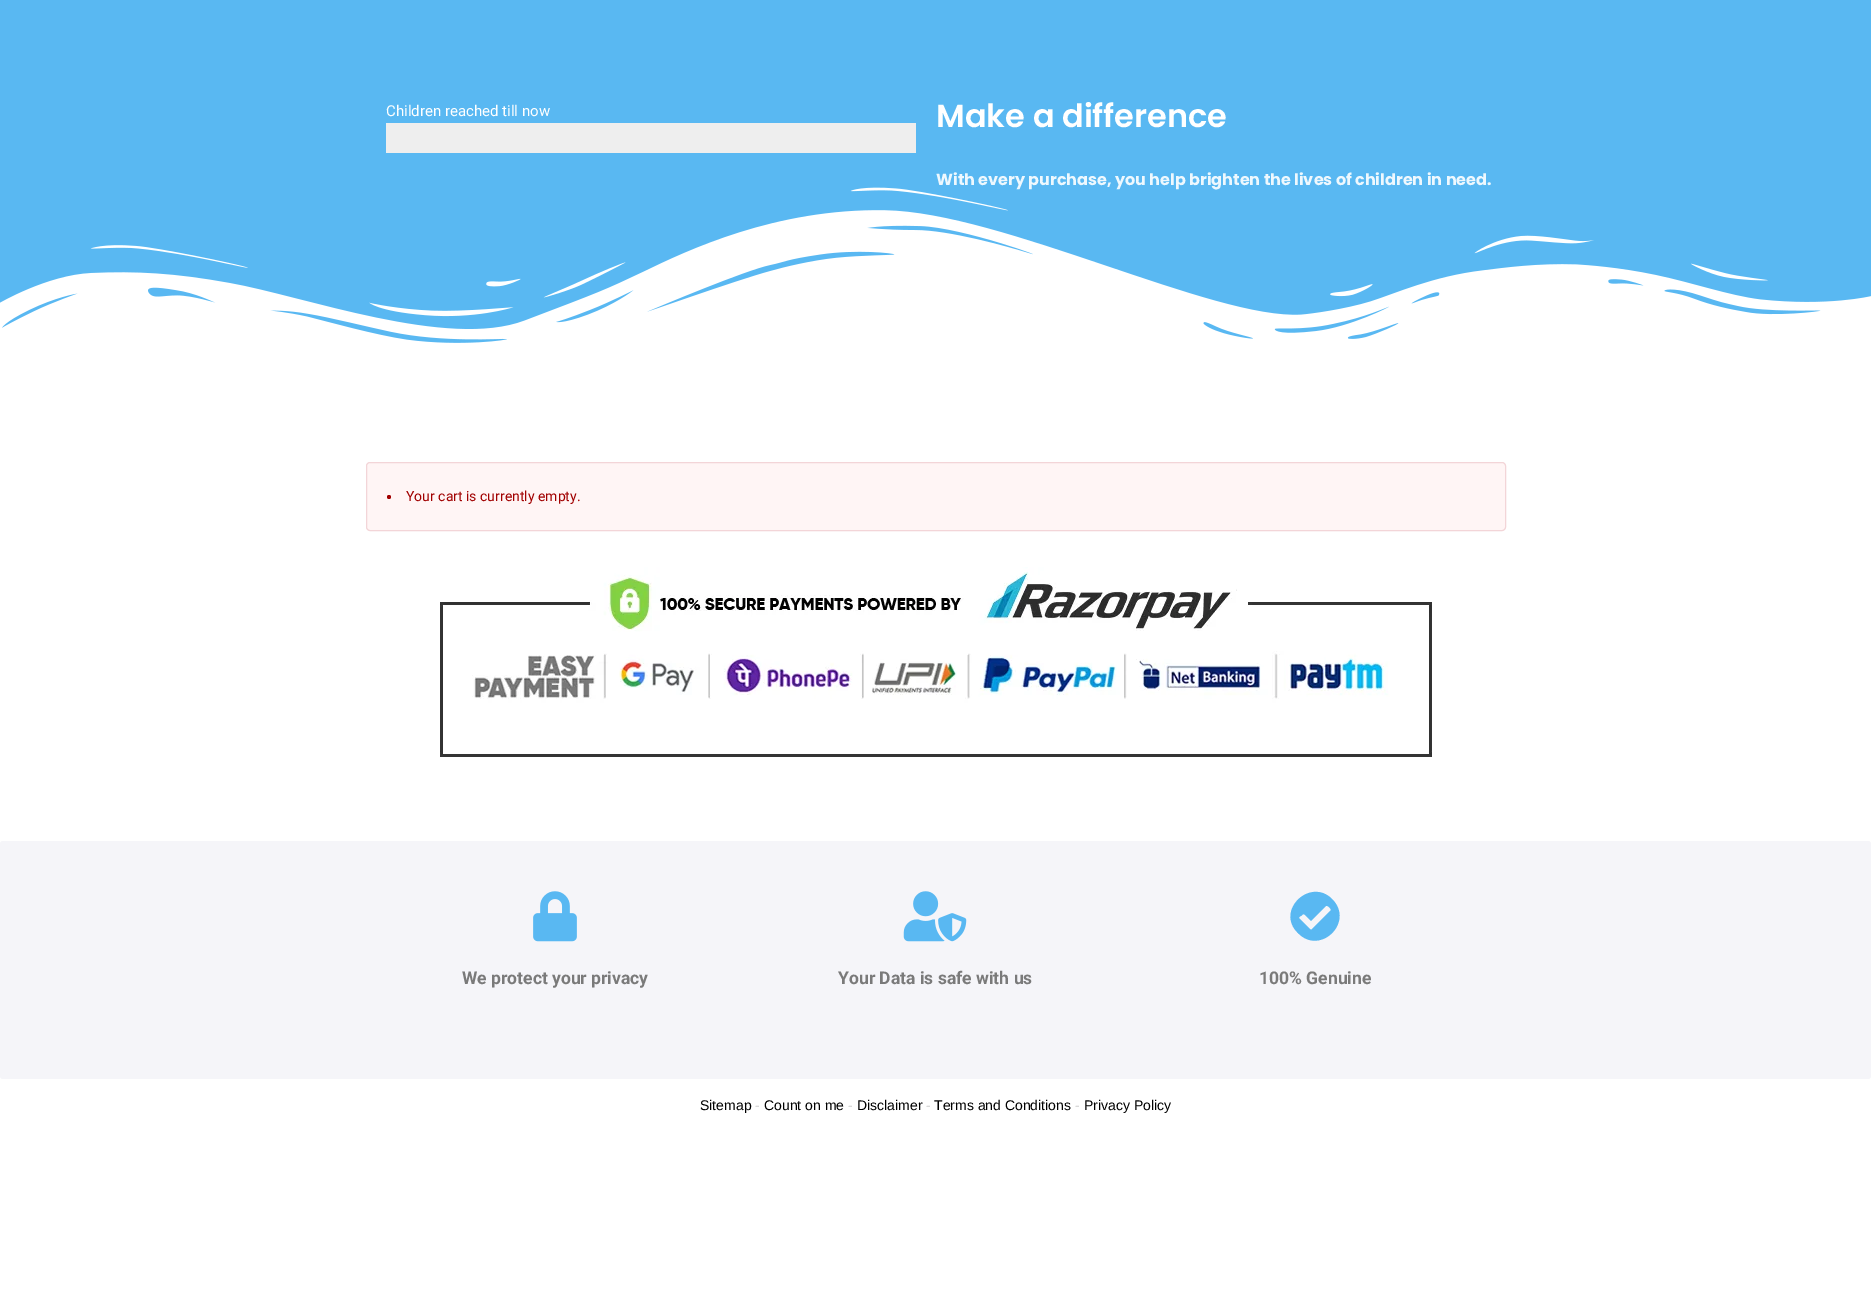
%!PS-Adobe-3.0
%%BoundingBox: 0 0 1871 1309
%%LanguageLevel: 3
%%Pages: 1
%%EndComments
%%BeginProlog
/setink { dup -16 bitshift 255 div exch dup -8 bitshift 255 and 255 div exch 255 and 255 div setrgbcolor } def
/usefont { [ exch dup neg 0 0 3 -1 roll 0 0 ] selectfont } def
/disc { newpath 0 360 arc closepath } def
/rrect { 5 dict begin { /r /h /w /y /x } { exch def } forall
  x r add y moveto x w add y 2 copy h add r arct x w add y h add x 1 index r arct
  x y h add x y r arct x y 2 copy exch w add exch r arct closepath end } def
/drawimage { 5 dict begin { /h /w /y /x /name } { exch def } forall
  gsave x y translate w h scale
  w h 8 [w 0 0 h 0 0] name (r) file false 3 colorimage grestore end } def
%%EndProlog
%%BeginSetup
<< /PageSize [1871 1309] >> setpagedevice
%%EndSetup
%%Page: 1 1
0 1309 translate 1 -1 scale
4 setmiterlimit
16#FFFFFF setink
0 0 1871 1309 rectfill
16#59B8F2 setink
0 0 1871 343 rectfill
/Roboto-Regular 15 usefont
16#FFFFFF setink
386 116 moveto (Children reached till now) show
16#EEEEEE setink
386 123 530 30 rectfill
/Poppins-SemiBold 32 usefont
16#FFFFFF setink
936 127 moveto (Make a difference) show
(img1.raw) 0 187 1871 179 drawimage
/Poppins-Bold 16 usefont
16#EEF8FE setink
936 185 moveto (With every purchase, you help brighten the lives of children in need.) show
16#FFF5F5 setink
366.5 462.5 1139 68 3.5 rrect gsave fill grestore
16#F3D5D8 setink
stroke
16#A10000 setink
389 497 2 disc fill
/Roboto-Regular 14 usefont
406 501 moveto (Your cart is currently empty.) show
(img2.raw) 440 567 992 190 drawimage
16#F5F5F9 setink
0 841 1871 238 3 rrect fill
(img3.raw) 533 891 44 51 drawimage
/Roboto-Bold 17.5 usefont
16#7A7A7A setink
462 984 moveto (We protect your privacy) show
(img4.raw) 903 891 64 51 drawimage
838 984 moveto (Your Data is safe with us) show
16#59B8F2 setink
1332 899 moveto 1355 922 1320 956 1298 933 curveto 1275 911 1310 877 1332 899 curveto closepath 1312 929 moveto 1331 910 lineto 1331 909 1328 905 1326 906 curveto 1311 921 lineto 1307 917 lineto 1304 914 1304 913 1301 916 curveto 1300 916 1299 917 1299 918 curveto 1308 927 lineto 1309 928 1311 931 1312 929 curveto closepath fill
16#7A7A7A setink
1259 984 moveto (100% Genuine) show
/LiberationSans-Regular 14 usefont
16#000000 setink
700 1110 moveto (Sitemap) show
16#CCCCCC setink
755 1110 moveto (-) show
16#000000 setink
764 1110 moveto (Count on me) show
16#CCCCCC setink
848 1110 moveto (-) show
16#000000 setink
857 1110 moveto (Disclaimer) show
16#CCCCCC setink
926 1110 moveto (-) show
16#000000 setink
934 1110 moveto (Terms and Conditions) show
16#CCCCCC setink
1075 1110 moveto (-) show
16#000000 setink
1084 1110 moveto (Privacy Policy) show
showpage
%%EOF
